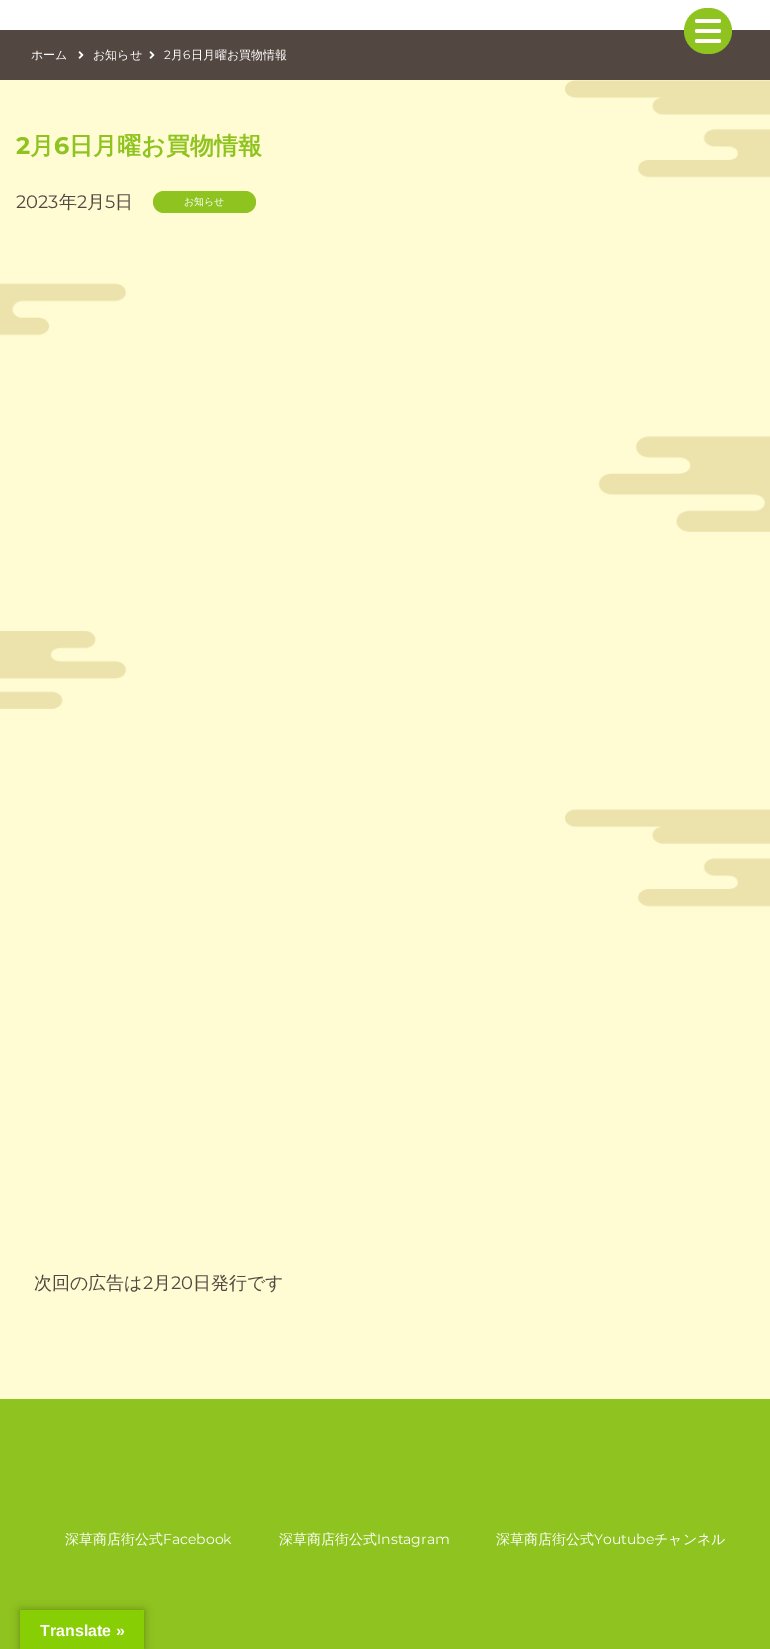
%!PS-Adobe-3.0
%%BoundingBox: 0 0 770 1649
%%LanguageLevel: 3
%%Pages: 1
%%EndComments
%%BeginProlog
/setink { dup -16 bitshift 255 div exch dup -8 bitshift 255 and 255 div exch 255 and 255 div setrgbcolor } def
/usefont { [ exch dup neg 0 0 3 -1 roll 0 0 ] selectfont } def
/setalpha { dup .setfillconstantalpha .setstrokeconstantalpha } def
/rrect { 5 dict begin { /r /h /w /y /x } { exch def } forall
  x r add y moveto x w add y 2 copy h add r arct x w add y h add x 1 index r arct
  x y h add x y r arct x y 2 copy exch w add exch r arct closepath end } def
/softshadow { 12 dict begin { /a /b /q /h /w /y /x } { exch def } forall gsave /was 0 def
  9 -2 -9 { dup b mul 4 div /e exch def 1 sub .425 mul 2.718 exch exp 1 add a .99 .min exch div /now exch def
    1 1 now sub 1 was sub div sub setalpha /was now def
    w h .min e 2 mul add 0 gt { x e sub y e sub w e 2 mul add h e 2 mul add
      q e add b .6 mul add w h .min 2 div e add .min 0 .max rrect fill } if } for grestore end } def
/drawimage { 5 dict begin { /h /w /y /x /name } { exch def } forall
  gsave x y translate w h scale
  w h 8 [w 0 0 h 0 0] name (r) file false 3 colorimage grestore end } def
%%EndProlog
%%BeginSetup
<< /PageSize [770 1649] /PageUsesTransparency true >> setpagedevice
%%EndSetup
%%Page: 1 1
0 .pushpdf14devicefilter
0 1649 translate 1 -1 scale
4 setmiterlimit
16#FFFFFF setink
0 0 770 1649 rectfill
16#534741 setink
0 30 770 50 rectfill
16#8FC31F setink
684 8 48 46 23 rrect fill
16#FFFFFF setink
695 19 26 4 2 rrect fill
695 29 26 4 2 rrect fill
695 39 26 4 2 rrect fill
/WenQuanYiZenHei-Medium 12 usefont
31 59 moveto (ホーム) show
(img1.raw) 78 51 6 8 drawimage
93 59 moveto (お知らせ) show
(img1.raw) 149 51 6 8 drawimage
/Montserrat-Regular 12 usefont
164 59 moveto (2) show
/WenQuanYiZenHei-Medium 12 usefont
171 59 moveto (月) show
/Montserrat-Regular 12 usefont
183 59 moveto (6) show
/WenQuanYiZenHei-Medium 12 usefont
191 59 moveto (日月曜お買物情報) show
16#FFFBD3 setink
0 80 770 1319 rectfill
(img2.raw) 0 80 770 827 drawimage
/Montserrat-Bold 24 usefont
16#8FC31F setink
16 154 moveto (2) show
/WenQuanYiZenHei-Bold 24 usefont
30 154 moveto (月) show
/Montserrat-Bold 24 usefont
54 154 moveto (6) show
/WenQuanYiZenHei-Bold 24 usefont
69 154 moveto (日月曜お買物情報) show
/Montserrat-Regular 18 usefont
16#534741 setink
16 208 moveto (2023) show
/WenQuanYiZenHei-Medium 18 usefont
59 208 moveto (年) show
/Montserrat-Regular 18 usefont
77 208 moveto (2) show
/WenQuanYiZenHei-Medium 18 usefont
87 208 moveto (月) show
/Montserrat-Regular 18 usefont
105 208 moveto (5) show
/WenQuanYiZenHei-Medium 18 usefont
115 208 moveto (日) show
16#8FC31F setink
153 191 103 22 11 rrect fill
/WenQuanYiZenHei-Medium 10 usefont
16#FFFFFF setink
184 205 moveto (お知らせ) show
/WenQuanYiZenHei-Medium 18 usefont
16#534741 setink
34 1289 moveto (次回の広告は) show
/Montserrat-Regular 18 usefont
143 1289 moveto (2) show
/WenQuanYiZenHei-Medium 18 usefont
153 1289 moveto (月) show
/Montserrat-Regular 18 usefont
171 1289 moveto (20) show
/WenQuanYiZenHei-Medium 18 usefont
193 1289 moveto (日発行です) show
16#8FC31F setink
0 1399 770 250 rectfill
/WenQuanYiZenHei-Medium 14 usefont
16#FFFFFF setink
65 1544 moveto (深草商店街公式) show
/Montserrat-Regular 14 usefont
163 1544 moveto (Facebook) show
/WenQuanYiZenHei-Medium 14 usefont
279 1544 moveto (深草商店街公式) show
/Montserrat-Regular 14 usefont
377 1544 moveto (Instagram) show
/WenQuanYiZenHei-Medium 14 usefont
496 1544 moveto (深草商店街公式) show
/Montserrat-Regular 14 usefont
594 1544 moveto (Youtube) show
/WenQuanYiZenHei-Medium 14 usefont
654 1544 moveto (チャンネル) show
16#000000 setink
20 1610 124 39 0 4.5 0.3 softshadow
16#87CE04 setink
20 1610 124 39 rectfill
/LiberationSans-Bold 16 usefont
16#FFFFFF setink
40 1636 moveto (Translate ») show
.poppdf14devicefilter showpage
%%EOF
